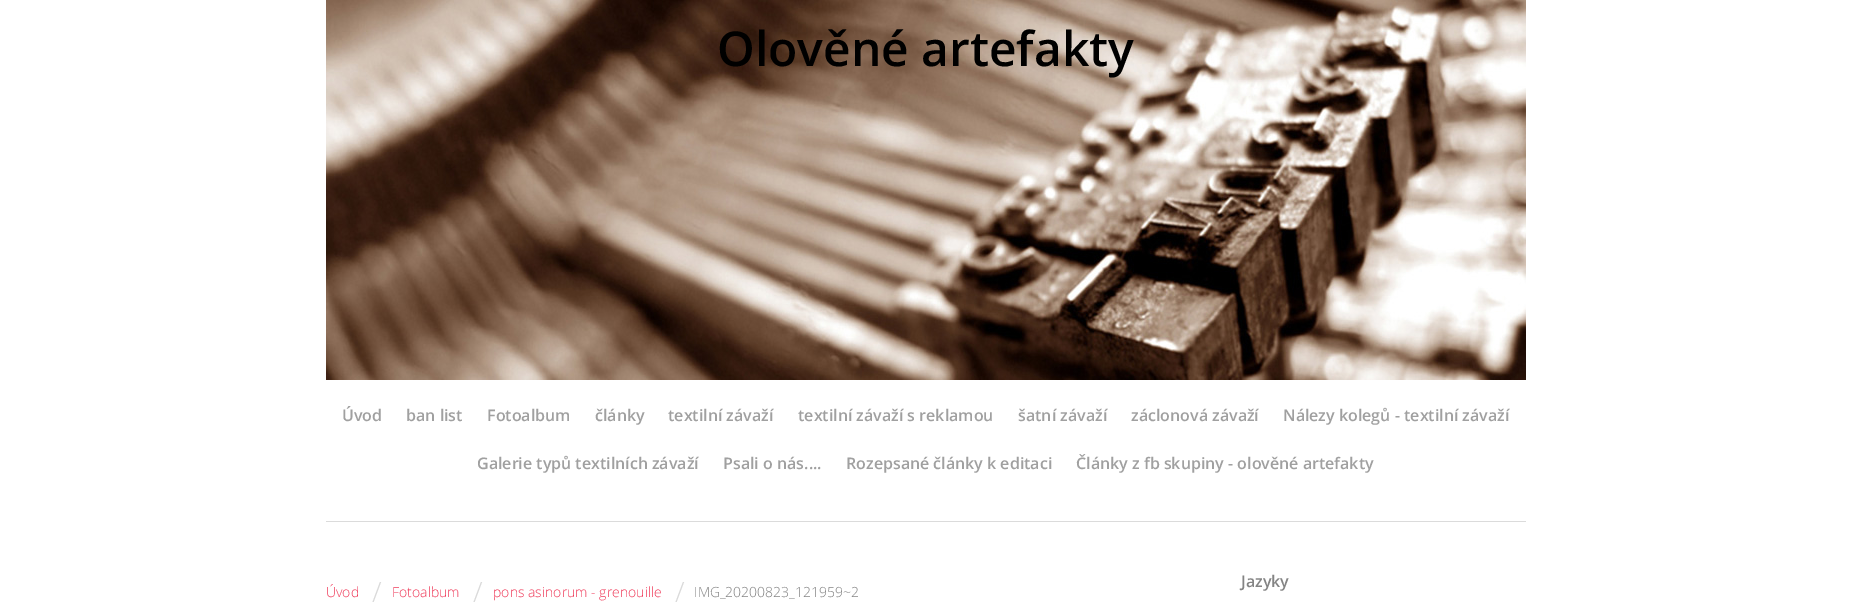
%!PS-Adobe-3.0
%%BoundingBox: 0 0 1851 605
%%LanguageLevel: 3
%%Pages: 1
%%EndComments
%%BeginProlog
/setink { dup -16 bitshift 255 div exch dup -8 bitshift 255 and 255 div exch 255 and 255 div setrgbcolor } def
/usefont { [ exch dup neg 0 0 3 -1 roll 0 0 ] selectfont } def
/drawimage { 5 dict begin { /h /w /y /x /name } { exch def } forall
  gsave x y translate w h scale
  w h 8 [w 0 0 h 0 0] name (r) file false 3 colorimage grestore end } def
%%EndProlog
%%BeginSetup
<< /PageSize [1851 605] >> setpagedevice
%%EndSetup
%%Page: 1 1
0 605 translate 1 -1 scale
4 setmiterlimit
16#FFFFFF setink
0 0 1851 605 rectfill
(img1.raw) 326 0 1200 380 drawimage
/OpenSans-SemiBold 48 usefont
16#000000 setink
717 66 moveto (Olověné artefakty) show
/OpenSans-SemiBold 16 usefont
16#A0A0A0 setink
[
    [(Úvod) 342 421]
    [(ban list) 406 421]
    [(Fotoalbum) 487 421]
    [(články) 595 421]
    [(textilní závaží) 668 421]
    [(textilní závaží s reklamou) 798 421]
    [(šatní závaží) 1018 421]
    [(záclonová závaží) 1131 421]
    [(Nálezy kolegů - textilní závaží) 1283 421]
    [(Galerie typů textilních závaží) 477 469]
    [(Psali o nás....) 723 469]
    [(Rozepsané články k editaci) 846 469]
    [(Články z fb skupiny - olověné artefakty) 1076 469]
] { aload pop moveto show } forall
16#DBDBDB setink
326 521 1200 1 rectfill
/OpenSans-Light 14 usefont
16#F03A59 setink
326 597 moveto (Úvod) show
/OpenSans-Light 28 usefont
16#DADADA setink
372 602 moveto (/) show
/OpenSans-Light 14 usefont
16#F03A59 setink
392 597 moveto (Fotoalbum) show
/OpenSans-Light 28 usefont
16#DADADA setink
473 602 moveto (/) show
/OpenSans-Light 14 usefont
16#F03A59 setink
493 597 moveto (pons asinorum - grenouille) show
/OpenSans-Light 28 usefont
16#DADADA setink
675 602 moveto (/) show
/OpenSans-Light 14 usefont
16#848484 setink
694 597 moveto (IMG_20200823_121959~2) show
/OpenSans-SemiBold 16 usefont
1241 587 moveto (Jazyky) show
showpage
%%EOF
